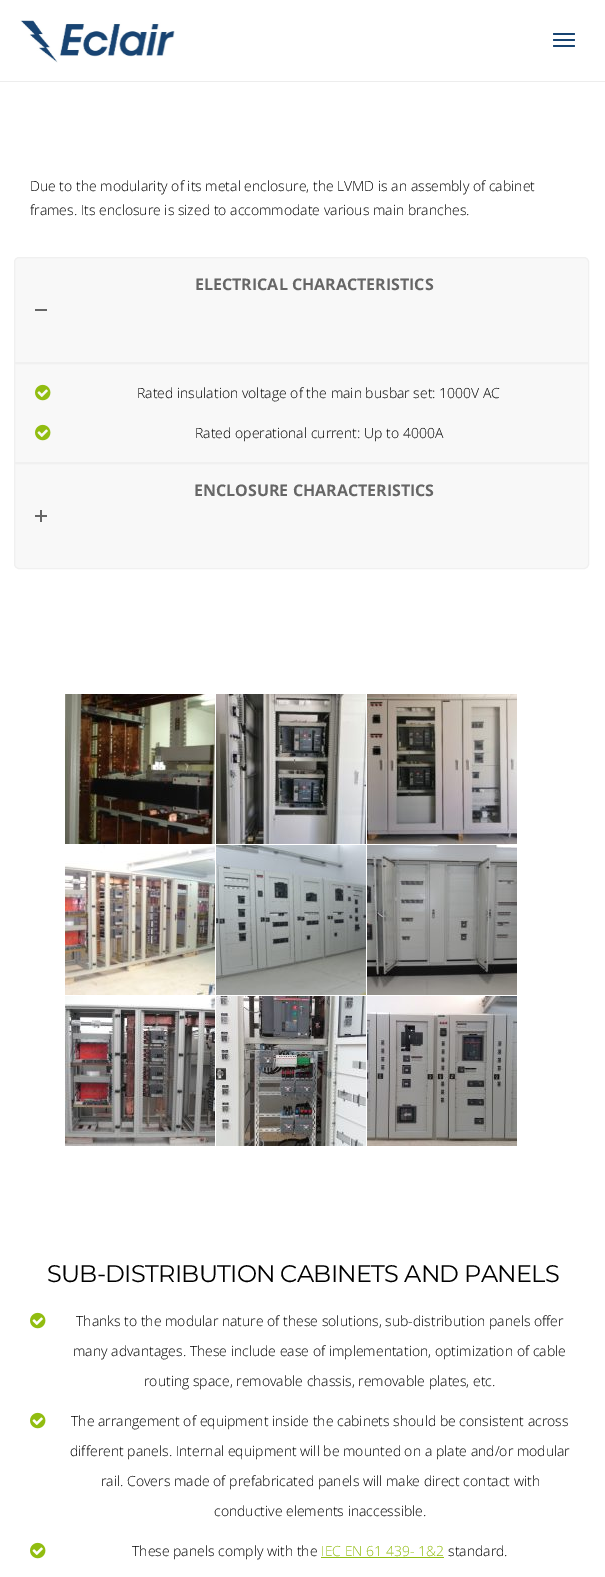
%!PS-Adobe-3.0
%%BoundingBox: 0 0 605 1577
%%LanguageLevel: 3
%%Pages: 1
%%EndComments
%%BeginProlog
/setink { dup -16 bitshift 255 div exch dup -8 bitshift 255 and 255 div exch 255 and 255 div setrgbcolor } def
/usefont { [ exch dup neg 0 0 3 -1 roll 0 0 ] selectfont } def
/rrect { 5 dict begin { /r /h /w /y /x } { exch def } forall
  x r add y moveto x w add y 2 copy h add r arct x w add y h add x 1 index r arct
  x y h add x y r arct x y 2 copy exch w add exch r arct closepath end } def
/drawimage { 5 dict begin { /h /w /y /x /name } { exch def } forall
  gsave x y translate w h scale
  w h 8 [w 0 0 h 0 0] name (r) file false 3 colorimage grestore end } def
%%EndProlog
%%BeginSetup
<< /PageSize [605 1577] >> setpagedevice
%%EndSetup
%%Page: 1 1
0 1577 translate 1 -1 scale
4 setmiterlimit
16#FFFFFF setink
0 0 605 1577 rectfill
16#EDEDED setink
0 81 605 1 rectfill
(img1.raw) 20 20 155 43 drawimage
16#174472 setink
553 33 22 2 1 rrect fill
553 39 22 2 1 rrect fill
553 45 22 2 1 rrect fill
/OpenSans-Light 14 usefont
16#000000 setink
30 191 moveto (Due to the modularity of its metal enclosure, the LVMD is an assembly of cabinet) show
30 215 moveto (frames. Its enclosure is sized to accommodate various main branches.) show
16#F8F8F8 setink
19 257.5 moveto 584 257.5 lineto 586.5 257.5 588.5 259.5 588.5 262 curveto 588.5 362.5 lineto 14.5 362.5 lineto 14.5 262 lineto 14.5 259.5 16.5 257.5 19 257.5 curveto closepath gsave fill grestore
16#F0F0F0 setink
stroke
/OpenSans-Bold 16 usefont
16#666666 setink
195 290 moveto (ELECTRICAL CHARACTERISTICS) show
35 309 12 2 rectfill
16#F8F8F8 setink
14.5 363.5 moveto 588.5 363.5 lineto 588.5 462.5 lineto 14.5 462.5 lineto closepath gsave fill grestore
16#F0F0F0 setink
stroke
(img2.raw) 35 384 16 17 drawimage
/OpenSans-Light 14 usefont
16#000000 setink
137 398 moveto (Rated insulation voltage of the main busbar set: 1000V AC) show
(img2.raw) 35 424 16 17 drawimage
195 438 moveto (Rated operational current: Up to 4000A) show
16#F8F8F8 setink
14.5 463.5 moveto 588.5 463.5 lineto 588.5 564 lineto 588.5 566.5 586.5 568.5 584 568.5 curveto 19 568.5 lineto 16.5 568.5 14.5 566.5 14.5 564 curveto closepath gsave fill grestore
16#F0F0F0 setink
stroke
/OpenSans-Bold 16 usefont
16#666666 setink
194 496 moveto (ENCLOSURE CHARACTERISTICS) show
35 515 12 2 rectfill
40 510 2 12 rectfill
(img3.raw) 65 694 150 150 drawimage
(img4.raw) 216 694 150 150 drawimage
(img5.raw) 367 694 150 150 drawimage
(img6.raw) 65 845 150 150 drawimage
(img7.raw) 216 845 150 150 drawimage
(img8.raw) 367 845 150 150 drawimage
(img9.raw) 65 996 150 150 drawimage
(img10.raw) 216 996 150 150 drawimage
(img11.raw) 367 996 150 150 drawimage
/Montserrat-Regular 24 usefont
16#000000 setink
47 1282 moveto -0.7 0 (SUB-DISTRIBUTION CABINETS AND PANELS) ashow
(img12.raw) 30 1312 16 17 drawimage
/OpenSans-Light 14 usefont
[
    [(Thanks to the modular nature of these solutions, sub-distribution panels offer) 76 1326]
    [(many advantages. These include ease of implementation, optimization of cable) 73 1356]
    [(routing space, removable chassis, removable plates, etc.) 144 1386]
] { aload pop moveto show } forall
(img12.raw) 30 1412 16 17 drawimage
[
    [(The arrangement of equipment inside the cabinets should be consistent across) 71 1426]
    [(different panels. Internal equipment will be mounted on a plate and/or modular) 70 1456]
    [(rail. Covers made of prefabricated panels will make direct contact with) 101 1486]
    [(conductive elements inaccessible.) 214 1516]
] { aload pop moveto show } forall
(img12.raw) 30 1542 16 17 drawimage
132 1556 moveto (These panels comply with the) show
16#91BD10 setink
321 1556 moveto (IEC EN 61 439- 1&2) show
321 1557 123 1 rectfill
16#000000 setink
448 1556 moveto (standard.) show
showpage
%%EOF
